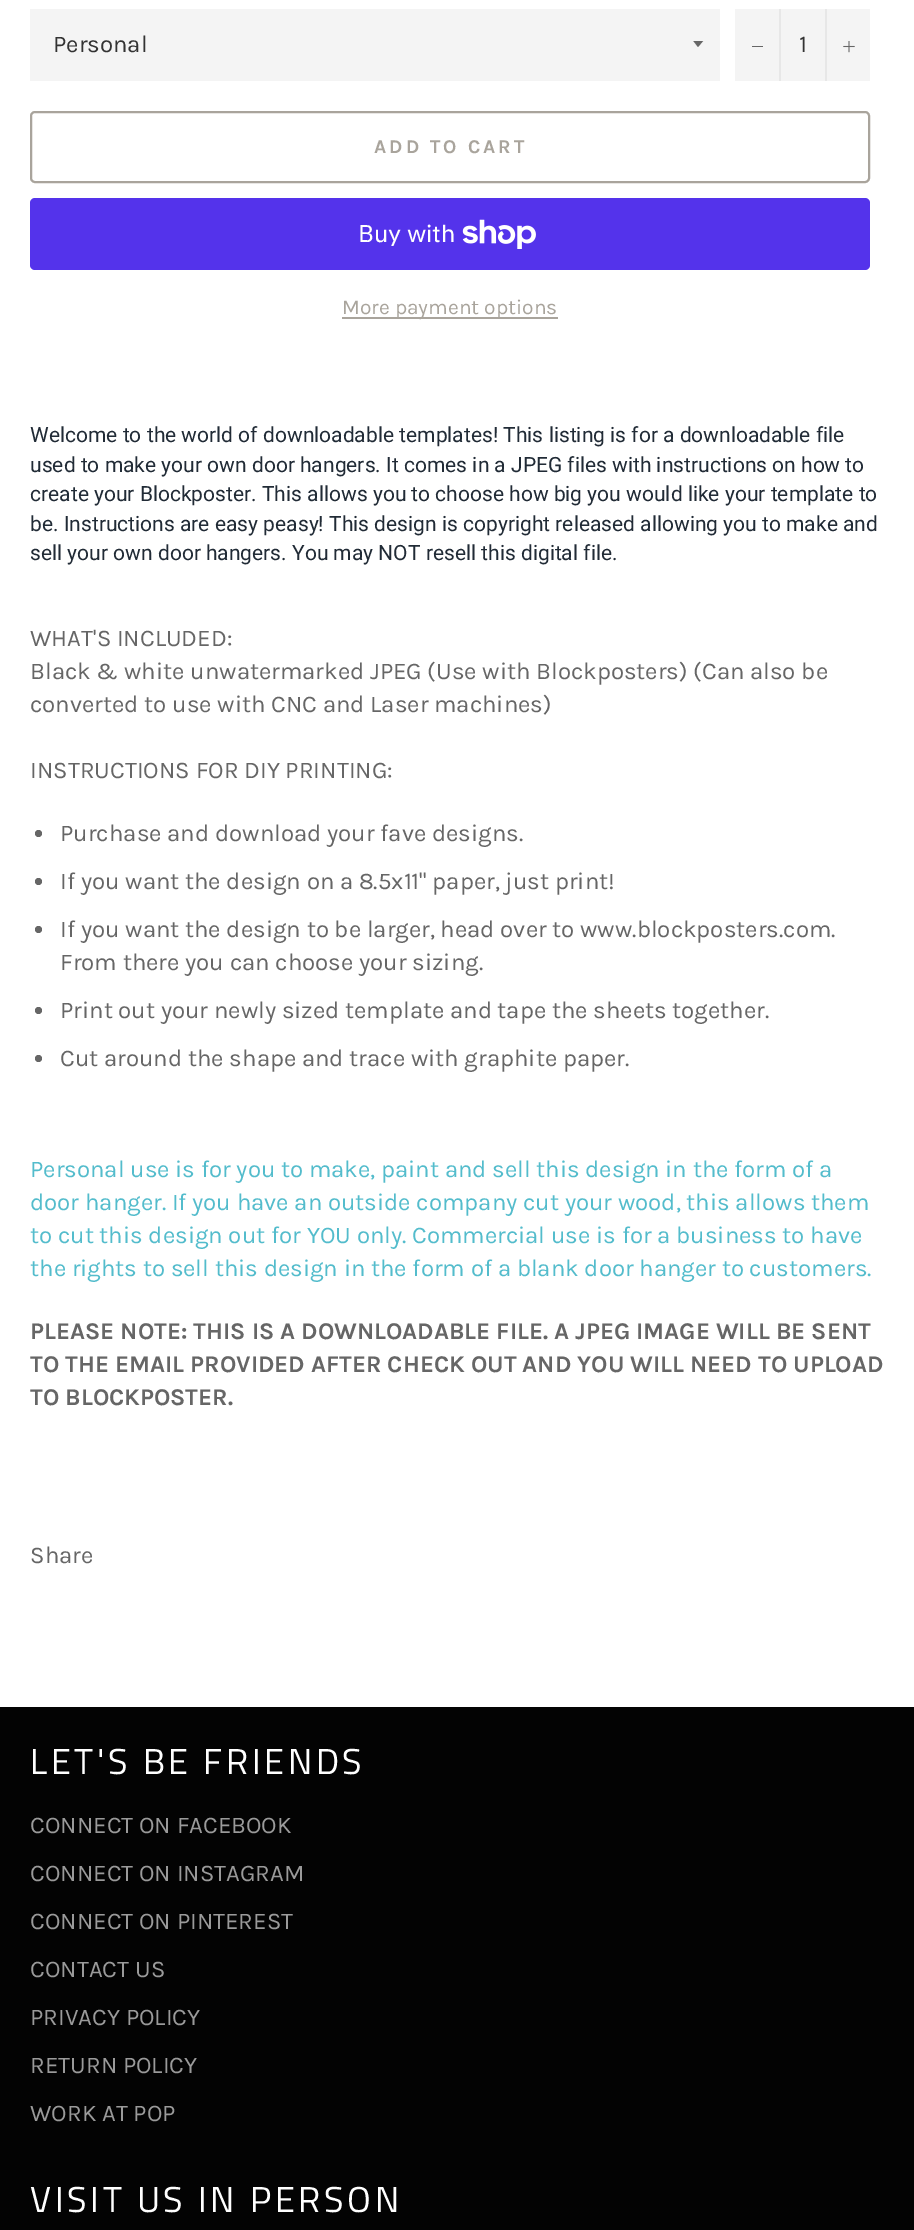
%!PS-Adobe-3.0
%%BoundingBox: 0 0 914 2230
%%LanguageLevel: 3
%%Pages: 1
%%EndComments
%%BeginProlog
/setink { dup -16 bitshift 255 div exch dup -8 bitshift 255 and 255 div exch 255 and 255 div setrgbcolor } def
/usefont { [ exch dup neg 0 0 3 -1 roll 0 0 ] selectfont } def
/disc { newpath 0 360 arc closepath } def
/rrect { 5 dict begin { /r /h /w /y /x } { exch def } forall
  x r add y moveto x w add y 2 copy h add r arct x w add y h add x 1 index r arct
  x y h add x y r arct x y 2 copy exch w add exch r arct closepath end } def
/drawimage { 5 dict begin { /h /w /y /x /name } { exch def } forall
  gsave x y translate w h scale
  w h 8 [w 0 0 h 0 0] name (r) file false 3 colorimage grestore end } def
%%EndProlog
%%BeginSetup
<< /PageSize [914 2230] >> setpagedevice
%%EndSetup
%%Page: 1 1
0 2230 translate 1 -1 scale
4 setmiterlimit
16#FFFFFF setink
0 0 914 2230 rectfill
16#F4F4F4 setink
30 9 690 72 rectfill
gsave
693 41 12 7 rectclip
16#666666 setink
693 40.5 moveto 698 47 lineto 703.5 40.5 lineto closepath fill
grestore
/Karla-Regular 24 usefont
16#333333 setink
53 52 moveto (Personal) show
[
    [735 9 135 72 16#F4F4F4]
    [779 9 2 72 16#E7E7E7]
    [752 46 11 1 16#666666]
] { aload pop setink rectfill } forall
16#333333 setink
799 52 moveto (1) show
16#E7E7E7 setink
825 9 2 72 rectfill
(img1.raw) 843 41 12 12 drawimage
16#A9A49C setink
2 setlinewidth
31 112 838 70 4 rrect stroke
/Karla-Bold 19.5 usefont
374 153 moveto 3 0 (ADD TO CART) ashow
16#5433EB setink
30 198 840 72 5 rrect fill
/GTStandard-Regular 24 usefont
16#FFFFFF setink
358 242 moveto (Buy with) show
(img2.raw) 462 219 74 30 drawimage
16#A9A49C setink
342 317 216 2 rectfill
/Karla-Regular 21 usefont
342 314 moveto (More payment options) show
/Roboto-Regular 21 usefont
16#212B36 setink
[
    [(Welcome to the world of downloadable templates! This listing is for a downloadable file) 30 442]
    [(used to make your own door hangers. It comes in a JPEG files with instructions on how to) 30 472]
    [(create your Blockposter. This allows you to choose how big you would like your template to) 30 501]
    [(be. Instructions are easy peasy! This design is copyright released allowing you to make and) 30 531]
    [(sell your own door hangers. You may NOT resell this digital file.) 30 560]
] { aload pop moveto show } forall
/Karla-Regular 24 usefont
16#666666 setink
[
    [(WHAT'S INCLUDED:) 30 646]
    [(Black & white unwatermarked JPEG \(Use with Blockposters\) \(Can also be) 30 679]
    [(converted to use with CNC and Laser machines\)) 30 712]
    [(INSTRUCTIONS FOR DIY PRINTING:) 30 778]
] { aload pop moveto show } forall
38.5 833.5 3.5 disc fill
60 841 moveto (Purchase and download your fave designs.) show
38.5 881.5 3.5 disc fill
60 889 moveto (If you want the design on a 8.5x11" paper, just print!) show
38.5 929.5 3.5 disc fill
60 937 moveto (If you want the design to be larger, head over to www.blockposters.com.) show
60 970 moveto (From there you can choose your sizing.) show
38.5 1010.5 3.5 disc fill
60 1018 moveto (Print out your newly sized template and tape the sheets together.) show
38.5 1058.5 3.5 disc fill
60 1066 moveto (Cut around the shape and trace with graphite paper.) show
16#53BCCC setink
[
    [(Personal use is for you to make, paint and sell this design in the form of a) 30 1177]
    [(door hanger. If you have an outside company cut your wood, this allows them) 30 1210]
    [(to cut this design out for YOU only. Commercial use is for a business to have) 30 1243]
    [(the rights to sell this design in the form of a blank door hanger to customers.) 30 1276]
] { aload pop moveto show } forall
/Karla-Bold 24 usefont
16#666666 setink
[
    [(PLEASE NOTE: THIS IS A DOWNLOADABLE FILE. A JPEG IMAGE WILL BE SENT) 30 1339]
    [(TO THE EMAIL PROVIDED AFTER CHECK OUT AND YOU WILL NEED TO UPLOAD) 30 1372]
    [(TO BLOCKPOSTER.) 30 1405]
] { aload pop moveto show } forall
/Karla-Regular 24 usefont
30 1563 moveto (Share) show
16#030303 setink
0 1707 914 523 rectfill
/TitilliumWeb-Regular 36 usefont
16#FFFFFF setink
30 1774 moveto 3.6 0 (LET'S BE FRIENDS) ashow
/Karla-Regular 24 usefont
16#9A9A9A setink
[
    [(CONNECT ON FACEBOOK) 30 1833]
    [(CONNECT ON INSTAGRAM) 30 1881]
    [(CONNECT ON PINTEREST) 30 1929]
    [(CONTACT US) 30 1977]
    [(PRIVACY POLICY) 30 2025]
    [(RETURN POLICY) 30 2073]
    [(WORK AT POP) 30 2121]
] { aload pop moveto show } forall
/TitilliumWeb-Regular 36 usefont
16#FFFFFF setink
30 2212 moveto 3.6 0 (VISIT US IN PERSON) ashow
showpage
%%EOF
